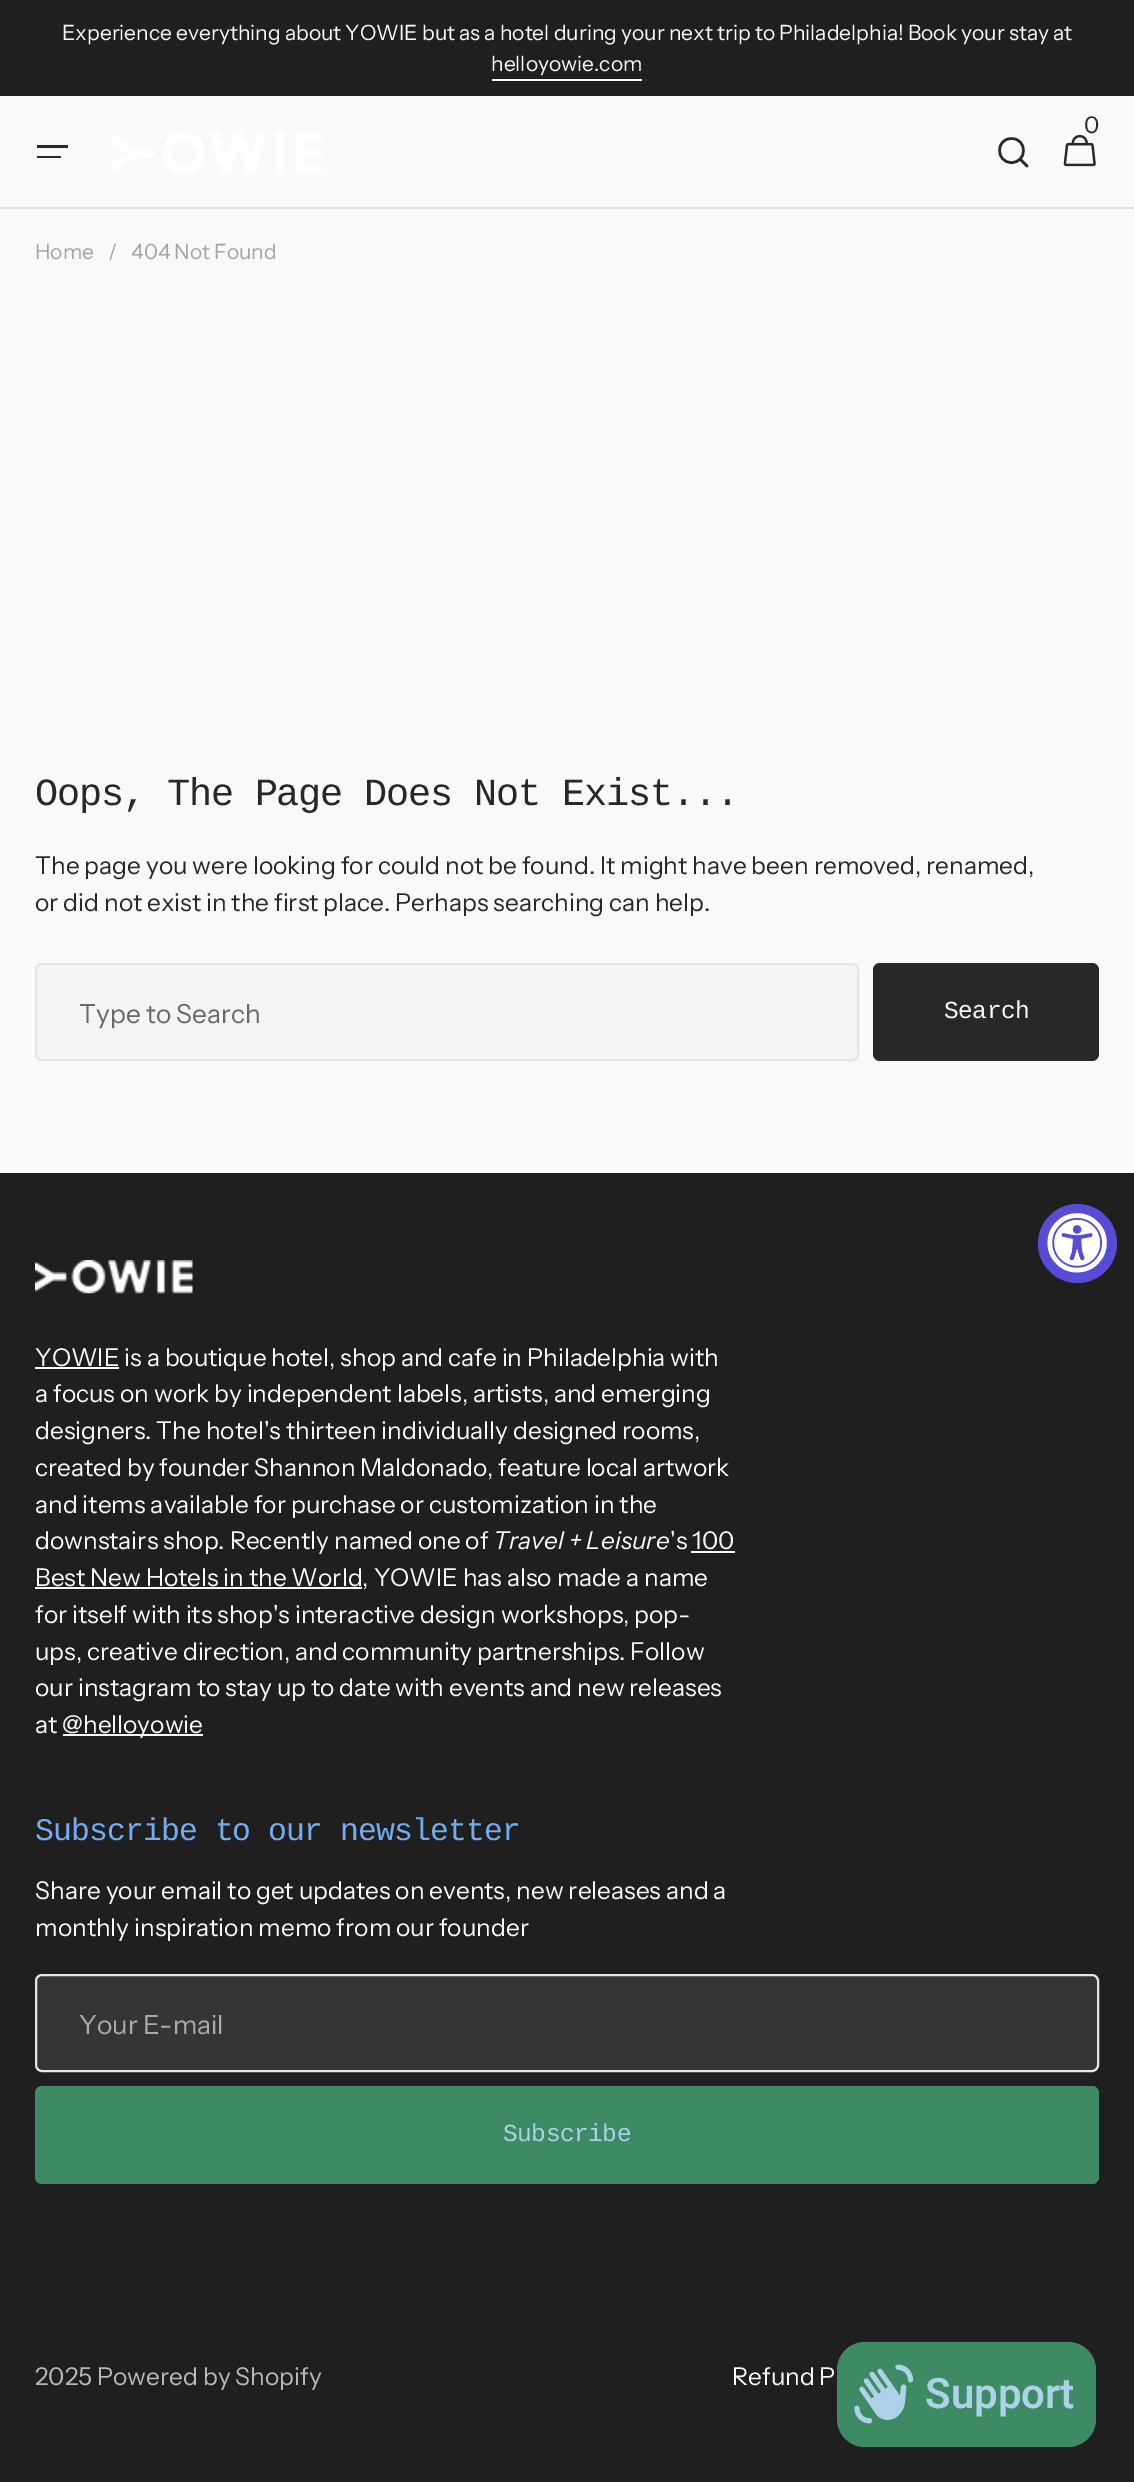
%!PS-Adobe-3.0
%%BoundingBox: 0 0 1134 2482
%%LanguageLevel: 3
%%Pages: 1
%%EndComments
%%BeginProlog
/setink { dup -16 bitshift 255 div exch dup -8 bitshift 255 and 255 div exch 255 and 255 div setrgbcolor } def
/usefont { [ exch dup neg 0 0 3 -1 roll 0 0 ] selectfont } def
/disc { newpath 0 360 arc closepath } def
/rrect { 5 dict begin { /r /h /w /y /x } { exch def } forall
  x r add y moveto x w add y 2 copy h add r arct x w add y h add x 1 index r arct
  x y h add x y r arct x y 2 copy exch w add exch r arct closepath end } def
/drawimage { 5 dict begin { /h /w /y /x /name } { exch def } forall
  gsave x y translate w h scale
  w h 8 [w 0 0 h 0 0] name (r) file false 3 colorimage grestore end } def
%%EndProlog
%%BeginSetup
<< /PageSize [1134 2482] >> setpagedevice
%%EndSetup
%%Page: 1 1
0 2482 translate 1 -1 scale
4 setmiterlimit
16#F9F9F9 setink
0 0 1134 2482 rectfill
16#1F1F1F setink
0 0 1134 96 rectfill
/InstrumentSans-Regular 21 usefont
16#F9F9F9 setink
62 40 moveto (Experience everything about YOWIE but as a hotel during your next trip to Philadelphia! Book your stay at) show
491 71 moveto (helloyowie.com) show
492 79 150 2 rectfill
/InstrumentSans-Regular 23 usefont
16#282828 setink
1084 133 moveto (0) show
(img1.raw) 1063 134 33 33 drawimage
2.5 setlinewidth
1 setlinecap
1 setlinejoin
1011.5 162.5 moveto 1027.5 162.5 1027.5 138.5 1011.5 138.5 curveto 995.5 138.5 995.5 162.5 1011.5 162.5 curveto closepath 1020 159 moveto 1027 166 lineto stroke
37 145 31 3 rectfill
37 156 24 2 rectfill
(img2.raw) 112 132 210 43 drawimage
16#E5E5E5 setink
0 207 1134 2 rectfill
/InstrumentSans-Regular 21 usefont
16#A5A5A5 setink
[
    [(Home) 35 259]
    [(/) 108 259]
    [(404 Not Found) 131 259]
] { aload pop moveto show } forall
/LiberationMono-Regular 38.5 usefont
16#282828 setink
35 805 moveto -1.15 0 (Oops, The Page Does Not Exist...) ashow
/InstrumentSans-Regular 24.5 usefont
35 874 moveto (The page you were looking for could not be found. It might have been removed, renamed,) show
35 911 moveto (or did not exist in the first place. Perhaps searching can help.) show
16#F4F4F4 setink
36 964 822 96 6 rrect gsave fill grestore
16#E5E5E5 setink
2 setlinewidth
0 setlinecap
0 setlinejoin
stroke
/InstrumentSans-Regular 26.25 usefont
16#696969 setink
79 1023 moveto (Type to Search) show
16#282828 setink
873 963 226 98 7 rrect fill
/LiberationMono-Regular 24.5 usefont
16#F9F9F9 setink
944 1018 moveto -0.5 0 (Search) ashow
16#1F1F1F setink
0 1173 1134 1309 rectfill
16#574CD5 setink
1077.5 1243.5 39.5 disc fill
(img3.raw) 1047 1213 60 60 drawimage
(img4.raw) 35 1260 158 34 drawimage
16#F9F9F9 setink
35 1367 84 2 rectfill
/InstrumentSans-Regular 24.5 usefont
[
    [(YOWIE is a boutique hotel, shop and cafe in Philadelphia with) 35 1366]
    [(a focus on work by independent labels, artists, and emerging) 35 1402]
    [(designers. The hotel's thirteen individually designed rooms,) 35 1439]
    [(created by founder Shannon Maldonado, feature local artwork) 35 1476]
    [(and items available for purchase or customization in the) 35 1513]
    [(downstairs shop. Recently named one of) 35 1549]
] { aload pop moveto show } forall
/InstrumentSans-Italic 24.5 usefont
493 1549 moveto (Travel + Leisure) show
/InstrumentSans-Regular 24.5 usefont
670 1549 moveto ('s 100) show
35 1587 327 2 rectfill
35 1586 moveto (Best New Hotels in the World, YOWIE has also made a name) show
691 1551 44 2 rectfill
[
    [(for itself with its shop's interactive design workshops, pop-) 35 1623]
    [(ups, creative direction, and community partnerships. Follow) 35 1660]
    [(our instagram to stay up to date with events and new releases) 35 1696]
    [(at) 35 1733]
] { aload pop moveto show } forall
63 1734 140 2 rectfill
62 1733 moveto (@helloyowie) show
/LiberationMono-Regular 31.5 usefont
16#73ACF1 setink
35 1840 moveto -0.95 0 (Subscribe to our newsletter) ashow
/InstrumentSans-Regular 24.5 usefont
16#F9F9F9 setink
35 1899 moveto (Share your email to get updates on events, new releases and a) show
35 1936 moveto (monthly inspiration memo from our founder) show
16#353535 setink
36 1975 1062 96 6 rrect gsave fill grestore
16#E5E5E5 setink
stroke
/InstrumentSans-Regular 26.25 usefont
16#ABABAB setink
79 2034 moveto (Your E-mail) show
16#3D8A64 setink
35 2086 1064 98 7 rrect fill
/LiberationMono-Regular 24.5 usefont
16#ADD2E8 setink
503 2141 moveto -0.5 0 (Subscribe) ashow
/InstrumentSans-Regular 24.5 usefont
16#B8B8B8 setink
35 2385 moveto (2025 Powered by Shopify) show
16#F9F9F9 setink
732 2385 moveto (Refund P) show
16#3D8A64 setink
837 2342 259 105 28 rrect fill
(img5.raw) 854 2364 60 60 drawimage
/Roboto-SemiBold 42 usefont
16#ADD2E8 setink
925 2408 moveto (Support) show
showpage
%%EOF
